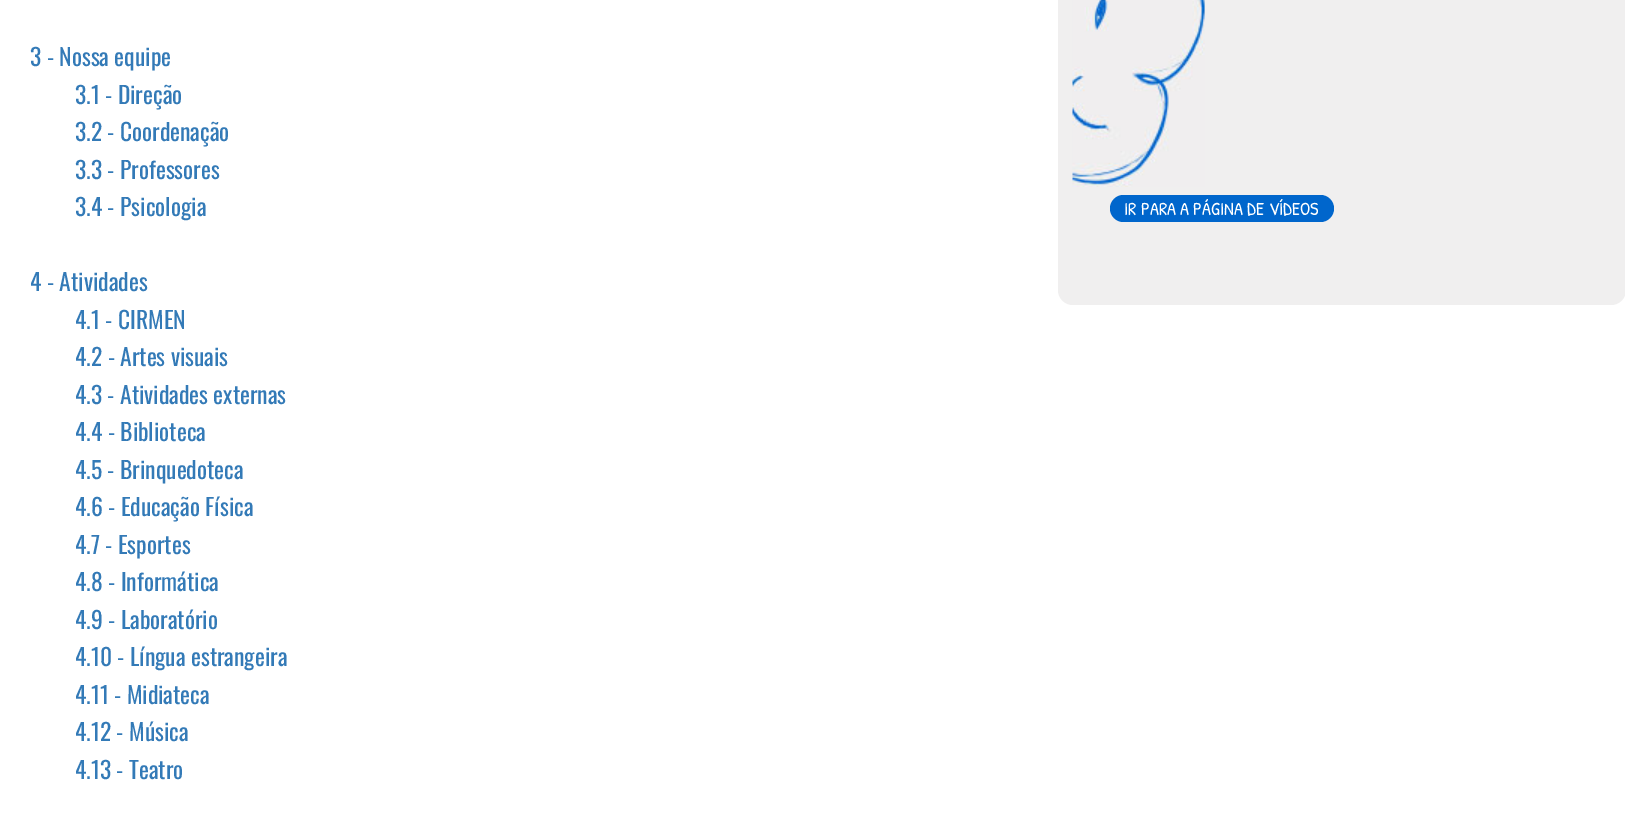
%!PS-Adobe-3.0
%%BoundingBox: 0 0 1625 814
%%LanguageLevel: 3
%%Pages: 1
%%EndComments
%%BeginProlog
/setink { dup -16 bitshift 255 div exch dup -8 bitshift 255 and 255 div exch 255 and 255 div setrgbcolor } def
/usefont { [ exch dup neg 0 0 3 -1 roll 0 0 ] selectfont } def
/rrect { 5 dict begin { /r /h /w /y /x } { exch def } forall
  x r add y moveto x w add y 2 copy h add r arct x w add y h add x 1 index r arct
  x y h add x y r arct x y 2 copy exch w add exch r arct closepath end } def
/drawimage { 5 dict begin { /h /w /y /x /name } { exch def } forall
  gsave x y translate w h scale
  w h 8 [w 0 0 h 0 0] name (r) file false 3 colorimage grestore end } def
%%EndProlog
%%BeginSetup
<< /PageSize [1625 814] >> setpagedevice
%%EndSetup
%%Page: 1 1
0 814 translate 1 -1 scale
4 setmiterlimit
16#FFFFFF setink
0 0 1625 814 rectfill
/Oswald-Regular 23.6 usefont
16#337AB7 setink
[
    [(3 - Nossa equipe) 30 66]
    [(3.1 - Direção) 75 104]
    [(3.2 - Coordenação) 75 141]
    [(3.3 - Professores) 75 179]
    [(3.4 - Psicologia) 75 216]
    [(4 - Atividades) 30 291]
    [(4.1 - CIRMEN) 75 329]
    [(4.2 - Artes visuais) 75 366]
    [(4.3 - Atividades externas) 75 404]
    [(4.4 - Biblioteca) 75 441]
    [(4.5 - Brinquedoteca) 75 479]
    [(4.6 - Educação Física) 75 516]
    [(4.7 - Esportes) 75 554]
    [(4.8 - Informática) 75 591]
    [(4.9 - Laboratório) 75 629]
    [(4.10 - Língua estrangeira) 75 666]
    [(4.11 - Midiateca) 75 704]
    [(4.12 - Música) 75 741]
    [(4.13 - Teatro) 75 779]
] { aload pop moveto show } forall
16#F0EFEF setink
1058 -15 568 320 15 rrect fill
(img1.raw) 1072 0 133 187 drawimage
16#0066CC setink
1110 195 224 27 13.5 rrect fill
/PatrickHandSC-Regular 18.4 usefont
16#FFFFFF setink
1124 215 moveto (IR PARA A PÁGINA DE VÍDEOS) show
showpage
%%EOF
